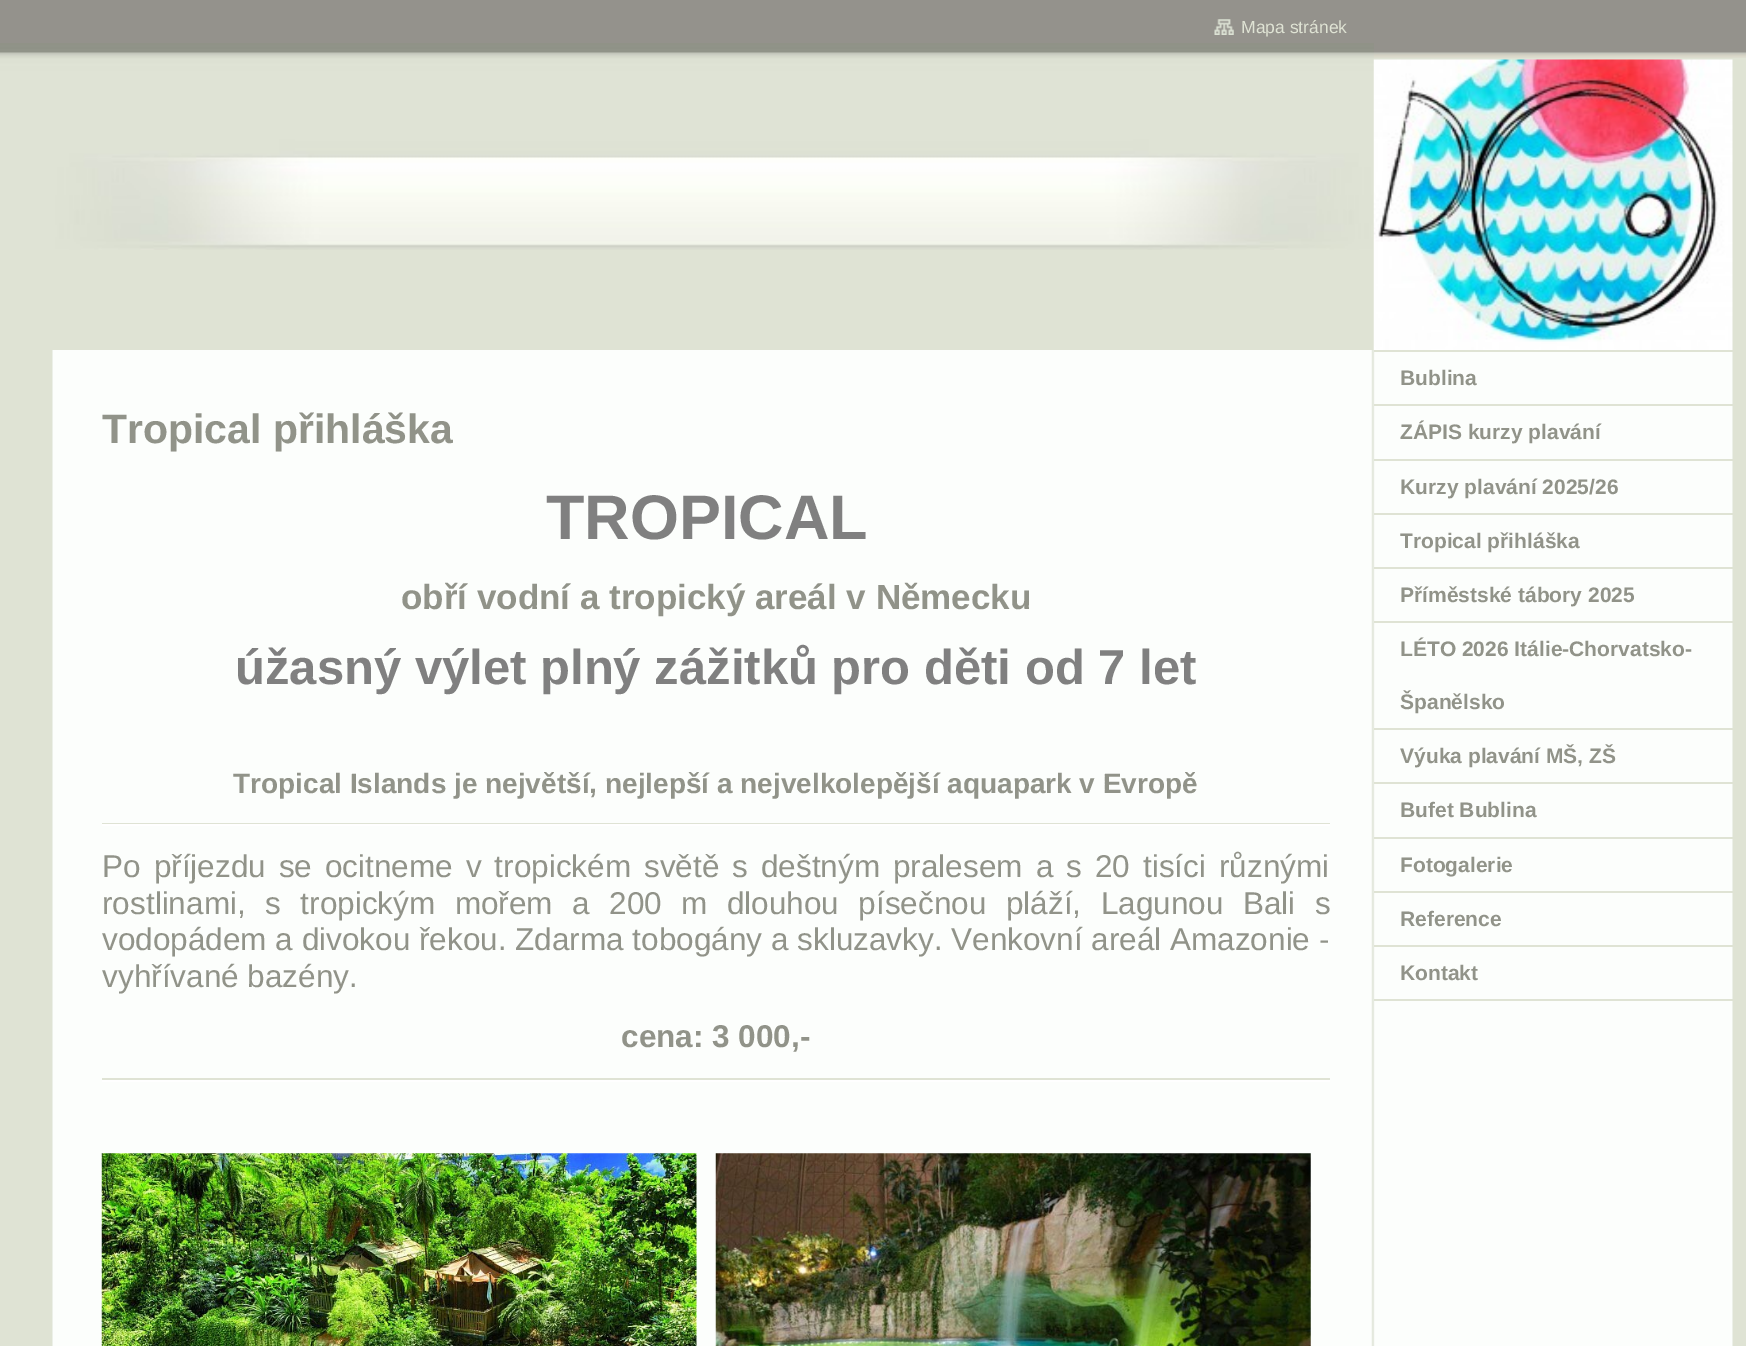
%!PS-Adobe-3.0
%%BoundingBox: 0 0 1746 1346
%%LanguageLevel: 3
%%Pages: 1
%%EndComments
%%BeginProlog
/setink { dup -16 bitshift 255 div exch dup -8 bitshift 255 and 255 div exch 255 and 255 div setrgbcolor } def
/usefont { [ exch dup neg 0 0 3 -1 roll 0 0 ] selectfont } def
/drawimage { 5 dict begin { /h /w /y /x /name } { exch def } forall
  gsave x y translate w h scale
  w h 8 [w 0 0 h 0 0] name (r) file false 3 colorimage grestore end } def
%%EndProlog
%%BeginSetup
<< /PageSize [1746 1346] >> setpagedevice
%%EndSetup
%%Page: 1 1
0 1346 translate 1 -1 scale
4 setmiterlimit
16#DFE3D4 setink
0 0 1746 1346 rectfill
(img1.raw) 0 0 1746 58 drawimage
(img2.raw) 0 43 1374 207 drawimage
(img3.raw) 1214 19 20 16 drawimage
/LiberationSans-Regular 17.5 usefont
1241 33 moveto (Mapa stránek) show
(img4.raw) 1373 59 360 291 drawimage
(img5.raw) 52 350 1681 996 drawimage
/LiberationSans-Bold 41 usefont
16#919389 setink
102 443 moveto (Tropical přihláška) show
/LiberationSans-Bold 63 usefont
16#808080 setink
546 539 moveto (TROPICAL) show
/LiberationSans-Bold 35 usefont
16#919389 setink
401 609 moveto (obří vodní a tropický areál v Německu) show
/LiberationSans-Bold 49 usefont
16#808080 setink
235 684 moveto (úžasný výlet plný zážitků pro děti od 7 let) show
/LiberationSans-Bold 28 usefont
16#919389 setink
233 793 moveto (Tropical Islands je největší, nejlepší a nejvelkolepější aquapark v Evropě) show
16#DFE3D4 setink
102 823 1228 1 rectfill
16#FFFFFF setink
102 824 1228 2 rectfill
/LiberationSans-Regular 31.5 usefont
16#919389 setink
102 877 moveto 4.25 0 32 (Po příjezdu se ocitneme v tropickém světě s deštným pralesem a s 20 tisíci různými) widthshow
102 914 moveto 10.75 0 32 (rostlinami, s tropickým mořem a 200 m dlouhou písečnou pláží, Lagunou Bali s) widthshow
102 950 moveto (vodopádem a divokou řekou. Zdarma tobogány a skluzavky. Venkovní areál Amazonie -) show
102 987 moveto (vyhřívané bazény.) show
/LiberationSans-Bold 31.5 usefont
621 1047 moveto (cena: 3 000,-) show
16#DFE3D4 setink
102 1078 1228 2 rectfill
16#FFFFFF setink
102 1080 1228 2 rectfill
(img6.raw) 101 1153 596 193 drawimage
(img7.raw) 715 1153 596 193 drawimage
16#DFE3D4 setink
1374 999 359 2 rectfill
1374 350 359 2 rectfill
/LiberationSans-Bold 21 usefont
16#919389 setink
1400 385 moveto (Bublina) show
16#DFE3D4 setink
1374 404 359 2 rectfill
16#919389 setink
1400 439 moveto (ZÁPIS kurzy plavání) show
16#DFE3D4 setink
1374 459 359 2 rectfill
16#919389 setink
1400 494 moveto (Kurzy plavání 2025/26) show
16#DFE3D4 setink
1374 513 359 2 rectfill
16#919389 setink
1400 548 moveto (Tropical přihláška) show
16#DFE3D4 setink
1374 567 359 2 rectfill
16#919389 setink
1400 602 moveto (Příměstské tábory 2025) show
16#DFE3D4 setink
1374 621 359 2 rectfill
16#919389 setink
1400 656 moveto (LÉTO 2026 Itálie-Chorvatsko-) show
1400 709 moveto (Španělsko) show
16#DFE3D4 setink
1374 728 359 2 rectfill
16#919389 setink
1400 763 moveto (Výuka plavání MŠ‚ ZŠ) show
16#DFE3D4 setink
1374 782 359 2 rectfill
16#919389 setink
1400 817 moveto (Bufet Bublina) show
16#DFE3D4 setink
1374 837 359 2 rectfill
16#919389 setink
1400 872 moveto (Fotogalerie) show
16#DFE3D4 setink
1374 891 359 2 rectfill
16#919389 setink
1400 926 moveto (Reference) show
16#DFE3D4 setink
1374 945 359 2 rectfill
16#919389 setink
1400 980 moveto (Kontakt) show
showpage
%%EOF
